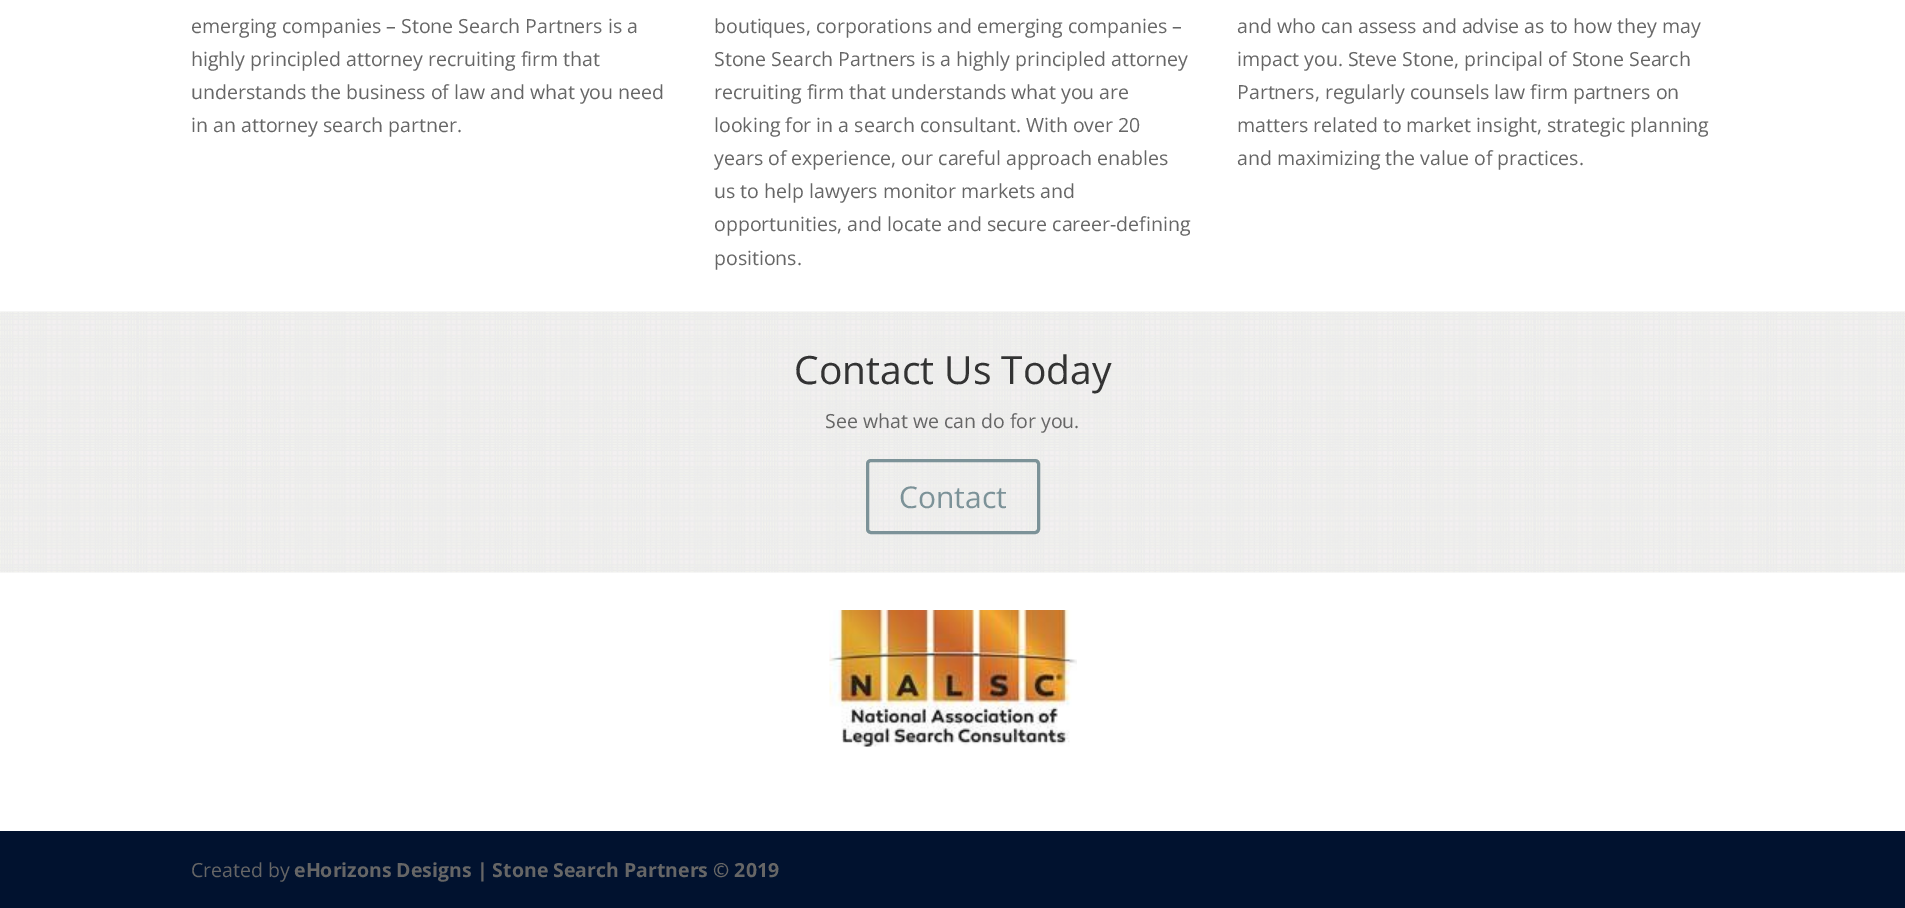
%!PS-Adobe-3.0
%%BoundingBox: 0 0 1905 908
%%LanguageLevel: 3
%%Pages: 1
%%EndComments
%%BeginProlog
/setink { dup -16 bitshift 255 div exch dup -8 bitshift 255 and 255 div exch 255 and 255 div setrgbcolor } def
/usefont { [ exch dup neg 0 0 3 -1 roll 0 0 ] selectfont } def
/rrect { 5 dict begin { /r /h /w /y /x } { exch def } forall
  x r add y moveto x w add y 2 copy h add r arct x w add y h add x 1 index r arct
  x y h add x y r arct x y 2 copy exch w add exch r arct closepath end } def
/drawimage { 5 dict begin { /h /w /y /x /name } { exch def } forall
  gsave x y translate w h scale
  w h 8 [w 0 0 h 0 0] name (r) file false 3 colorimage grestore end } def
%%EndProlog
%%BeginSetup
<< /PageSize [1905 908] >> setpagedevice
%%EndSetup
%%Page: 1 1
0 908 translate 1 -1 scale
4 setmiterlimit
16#FFFFFF setink
0 0 1905 908 rectfill
/OpenSans-Regular 19.5 usefont
16#666666 setink
[
    [(emerging companies – Stone Search Partners is a) 191 33]
    [(highly principled attorney recruiting firm that) 191 66]
    [(understands the business of law and what you need) 191 99]
    [(in an attorney search partner.) 191 132]
    [(boutiques, corporations and emerging companies –) 714 33]
    [(Stone Search Partners is a highly principled attorney) 714 66]
    [(recruiting firm that understands what you are) 714 99]
    [(looking for in a search consultant. With over 20) 714 132]
    [(years of experience, our careful approach enables) 714 165]
    [(us to help lawyers monitor markets and) 714 198]
    [(opportunities, and locate and secure career-defining) 714 231]
    [(positions.) 714 265]
    [(and who can assess and advise as to how they may) 1237 33]
    [(impact you. Steve Stone, principal of Stone Search) 1237 66]
    [(Partners, regularly counsels law firm partners on) 1237 99]
    [(matters related to market insight, strategic planning) 1237 132]
    [(and maximizing the value of practices.) 1237 165]
] { aload pop moveto show } forall
(img1.raw) 0 311 1905 262 drawimage
/OpenSans-Regular 39 usefont
16#333333 setink
794 384 moveto (Contact Us Today) show
/OpenSans-Regular 19.5 usefont
16#666666 setink
825 428 moveto (See what we can do for you.) show
16#7C9298 setink
3 setlinewidth
867.5 460.5 171 72 3.5 rrect stroke
/OpenSans-Regular 30 usefont
899 508 moveto (Contact) show
(img2.raw) 829 610 248 137 drawimage
16#01122F setink
0 831 1905 77 rectfill
/OpenSans-Regular 19.5 usefont
16#666666 setink
191 877 moveto (Created by) show
/OpenSans-Bold 19.5 usefont
294 877 moveto (eHorizons Designs | Stone Search Partners © 2019) show
showpage
%%EOF
